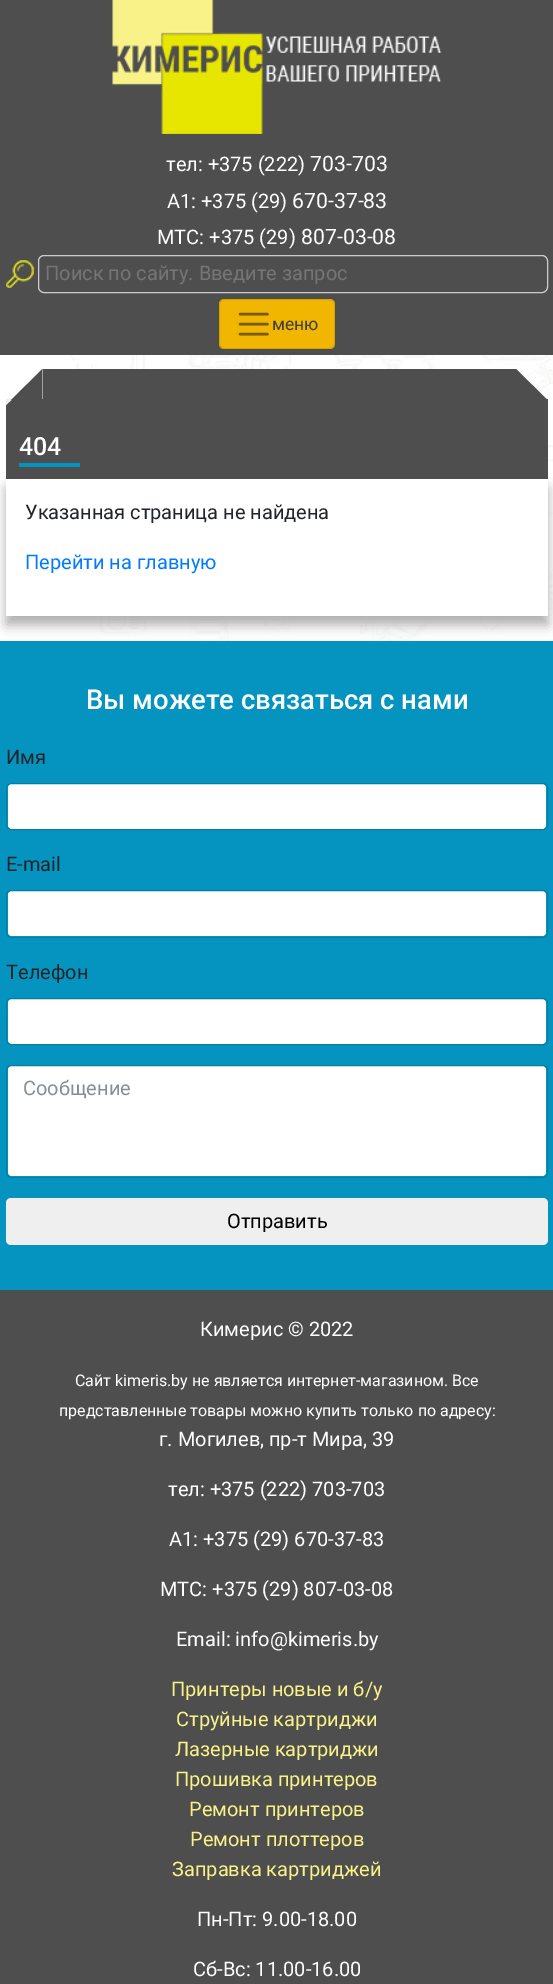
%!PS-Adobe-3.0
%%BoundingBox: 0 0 553 1984
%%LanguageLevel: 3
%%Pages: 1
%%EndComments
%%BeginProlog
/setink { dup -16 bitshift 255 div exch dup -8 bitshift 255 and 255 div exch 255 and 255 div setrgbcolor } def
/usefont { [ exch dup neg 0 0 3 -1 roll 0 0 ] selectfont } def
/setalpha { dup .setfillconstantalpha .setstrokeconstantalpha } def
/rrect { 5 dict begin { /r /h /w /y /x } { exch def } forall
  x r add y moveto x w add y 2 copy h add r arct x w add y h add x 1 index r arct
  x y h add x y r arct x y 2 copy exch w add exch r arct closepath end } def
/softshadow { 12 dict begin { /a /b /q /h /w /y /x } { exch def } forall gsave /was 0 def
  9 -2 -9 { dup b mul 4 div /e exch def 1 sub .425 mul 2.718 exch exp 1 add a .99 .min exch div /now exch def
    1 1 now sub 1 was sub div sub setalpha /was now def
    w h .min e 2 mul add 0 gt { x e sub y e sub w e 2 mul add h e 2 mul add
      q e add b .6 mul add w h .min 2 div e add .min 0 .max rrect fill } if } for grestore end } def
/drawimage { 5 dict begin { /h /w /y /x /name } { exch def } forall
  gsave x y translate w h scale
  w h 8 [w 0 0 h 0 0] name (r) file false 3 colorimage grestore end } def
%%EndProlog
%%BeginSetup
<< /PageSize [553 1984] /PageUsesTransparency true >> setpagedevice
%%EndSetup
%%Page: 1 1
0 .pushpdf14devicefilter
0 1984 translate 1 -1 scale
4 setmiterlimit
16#FFFFFF setink
0 0 553 1984 rectfill
(img1.raw) 40 355 513 286 drawimage
16#4E4E4E setink
0 0 553 355 rectfill
(img2.raw) 112 0 330 134 drawimage
/Roboto-Regular 20 usefont
16#FFFFFF setink
166 171 moveto (тел: +375 \(222\)) show
/Roboto-Regular 21.25 usefont
310 171 moveto (703-703) show
/Roboto-Regular 20 usefont
167 208 moveto (A1: +375 \(29\)) show
/Roboto-Regular 21.25 usefont
292 208 moveto (670-37-83) show
/Roboto-Regular 20 usefont
157 244 moveto (МТС: +375 \(29\)) show
/Roboto-Regular 21.25 usefont
301 244 moveto (807-03-08) show
(img3.raw) 6 260 28 28 drawimage
16#CCCCCC setink
38.5 255.5 509 37 5.5 rrect stroke
/Roboto-Regular 20 usefont
16#757575 setink
45 280 moveto (Поиск по сайту. Введите запрос) show
16#F0B600 setink
219 299 116 50 5 rrect fill
0.1 setalpha
16#000000 setink
219.5 299.5 115 49 4.5 rrect stroke
1 setalpha
16#785B00 setink
2.5 setlinewidth
1 setlinecap
240 314 moveto 267.5 314 lineto 240 324 moveto 267.5 324 lineto 240 334 moveto 267.5 334 lineto stroke
/Roboto-Regular 17.5 usefont
16#3F3F3F setink
272 330 moveto (меню) show
0.8 setalpha
16#FFFFFF setink
40 355 513 286 rectfill
1 setalpha
16#ADADAD setink
6 488 542 137 0 6 1 softshadow
16#4E4E4E setink
6 399 542 80 rectfill
43 369 473 30 rectfill
16#EFEBEA setink
6 399 moveto 12.5 399 lineto 6 405 lineto closepath fill
16#4E4E4E setink
42.5 369 moveto 42.5 400 lineto 11 400 lineto closepath fill
516 400 moveto 516 369 lineto 547.5 400 lineto closepath fill
16#0594BF setink
19 463 61 4 rectfill
/Roboto-Medium 25 usefont
16#FFFFFF setink
19 455 moveto (404) show
6 479 542 137 rectfill
/Roboto-Regular 20 usefont
16#212529 setink
25 519 moveto (Указанная страница не найдена) show
16#007BFF setink
25 569 moveto (Перейти на главную) show
16#0594BF setink
0 641 553 649 rectfill
/Roboto-Medium 27.5 usefont
16#FFFFFF setink
86 709 moveto (Вы можете связаться с нами) show
/Roboto-Regular 20 usefont
16#212529 setink
6 764 moveto (Имя) show
16#FFFFFF setink
8 784 538 45 4 rrect fill
16#047EA2 setink
1 setlinewidth
0 setlinecap
6.5 783.5 541 46 4.5 rrect stroke
16#212529 setink
6 871 moveto (E-mail) show
16#FFFFFF setink
8 891 538 45 4 rrect fill
16#047EA2 setink
6.5 890.5 541 47 4.5 rrect stroke
16#212529 setink
6 979 moveto (Телефон) show
16#FFFFFF setink
8 999 538 45 4 rrect fill
16#047EA2 setink
6.5 998.5 541 46 4.5 rrect stroke
16#FFFFFF setink
8 1066 538 110 4 rrect fill
16#047EA2 setink
6.5 1065.5 541 112 4.5 rrect stroke
16#868E96 setink
23 1095 moveto (Сообщение) show
16#EFEFEF setink
6 1198 542 47 5 rrect fill
16#000000 setink
227 1228 moveto (Отправить) show
16#4E4E4E setink
0 1290 553 694 rectfill
16#FFFFFF setink
200 1336 moveto (Кимерис © 2022) show
/Roboto-Regular 16 usefont
75 1386 moveto (Сайт kimeris.by не является интернет-магазином. Все) show
59 1416 moveto (представленные товары можно купить только по адресу:) show
/Roboto-Regular 20 usefont
[
    [(г. Могилев, пр-т Мира, 39) 159 1446]
    [(тел: +375 \(222\) 703-703) 168 1496]
    [(А1: +375 \(29\) 670-37-83) 169 1546]
    [(МТС: +375 \(29\) 807-03-08) 160 1596]
    [(Email: info@kimeris.by) 176 1646]
] { aload pop moveto show } forall
16#F8F288 setink
[
    [(Принтеры новые и б/у) 171 1696]
    [(Струйные картриджи) 176 1726]
    [(Лазерные картриджи) 175 1756]
    [(Прошивка принтеров) 175 1786]
    [(Ремонт принтеров) 189 1816]
    [(Ремонт плоттеров) 190 1846]
    [(Заправка картриджей) 172 1876]
] { aload pop moveto show } forall
16#FFFFFF setink
197 1926 moveto (Пн-Пт: 9.00-18.00) show
193 1976 moveto (Сб-Вс: 11.00-16.00) show
.poppdf14devicefilter showpage
%%EOF
